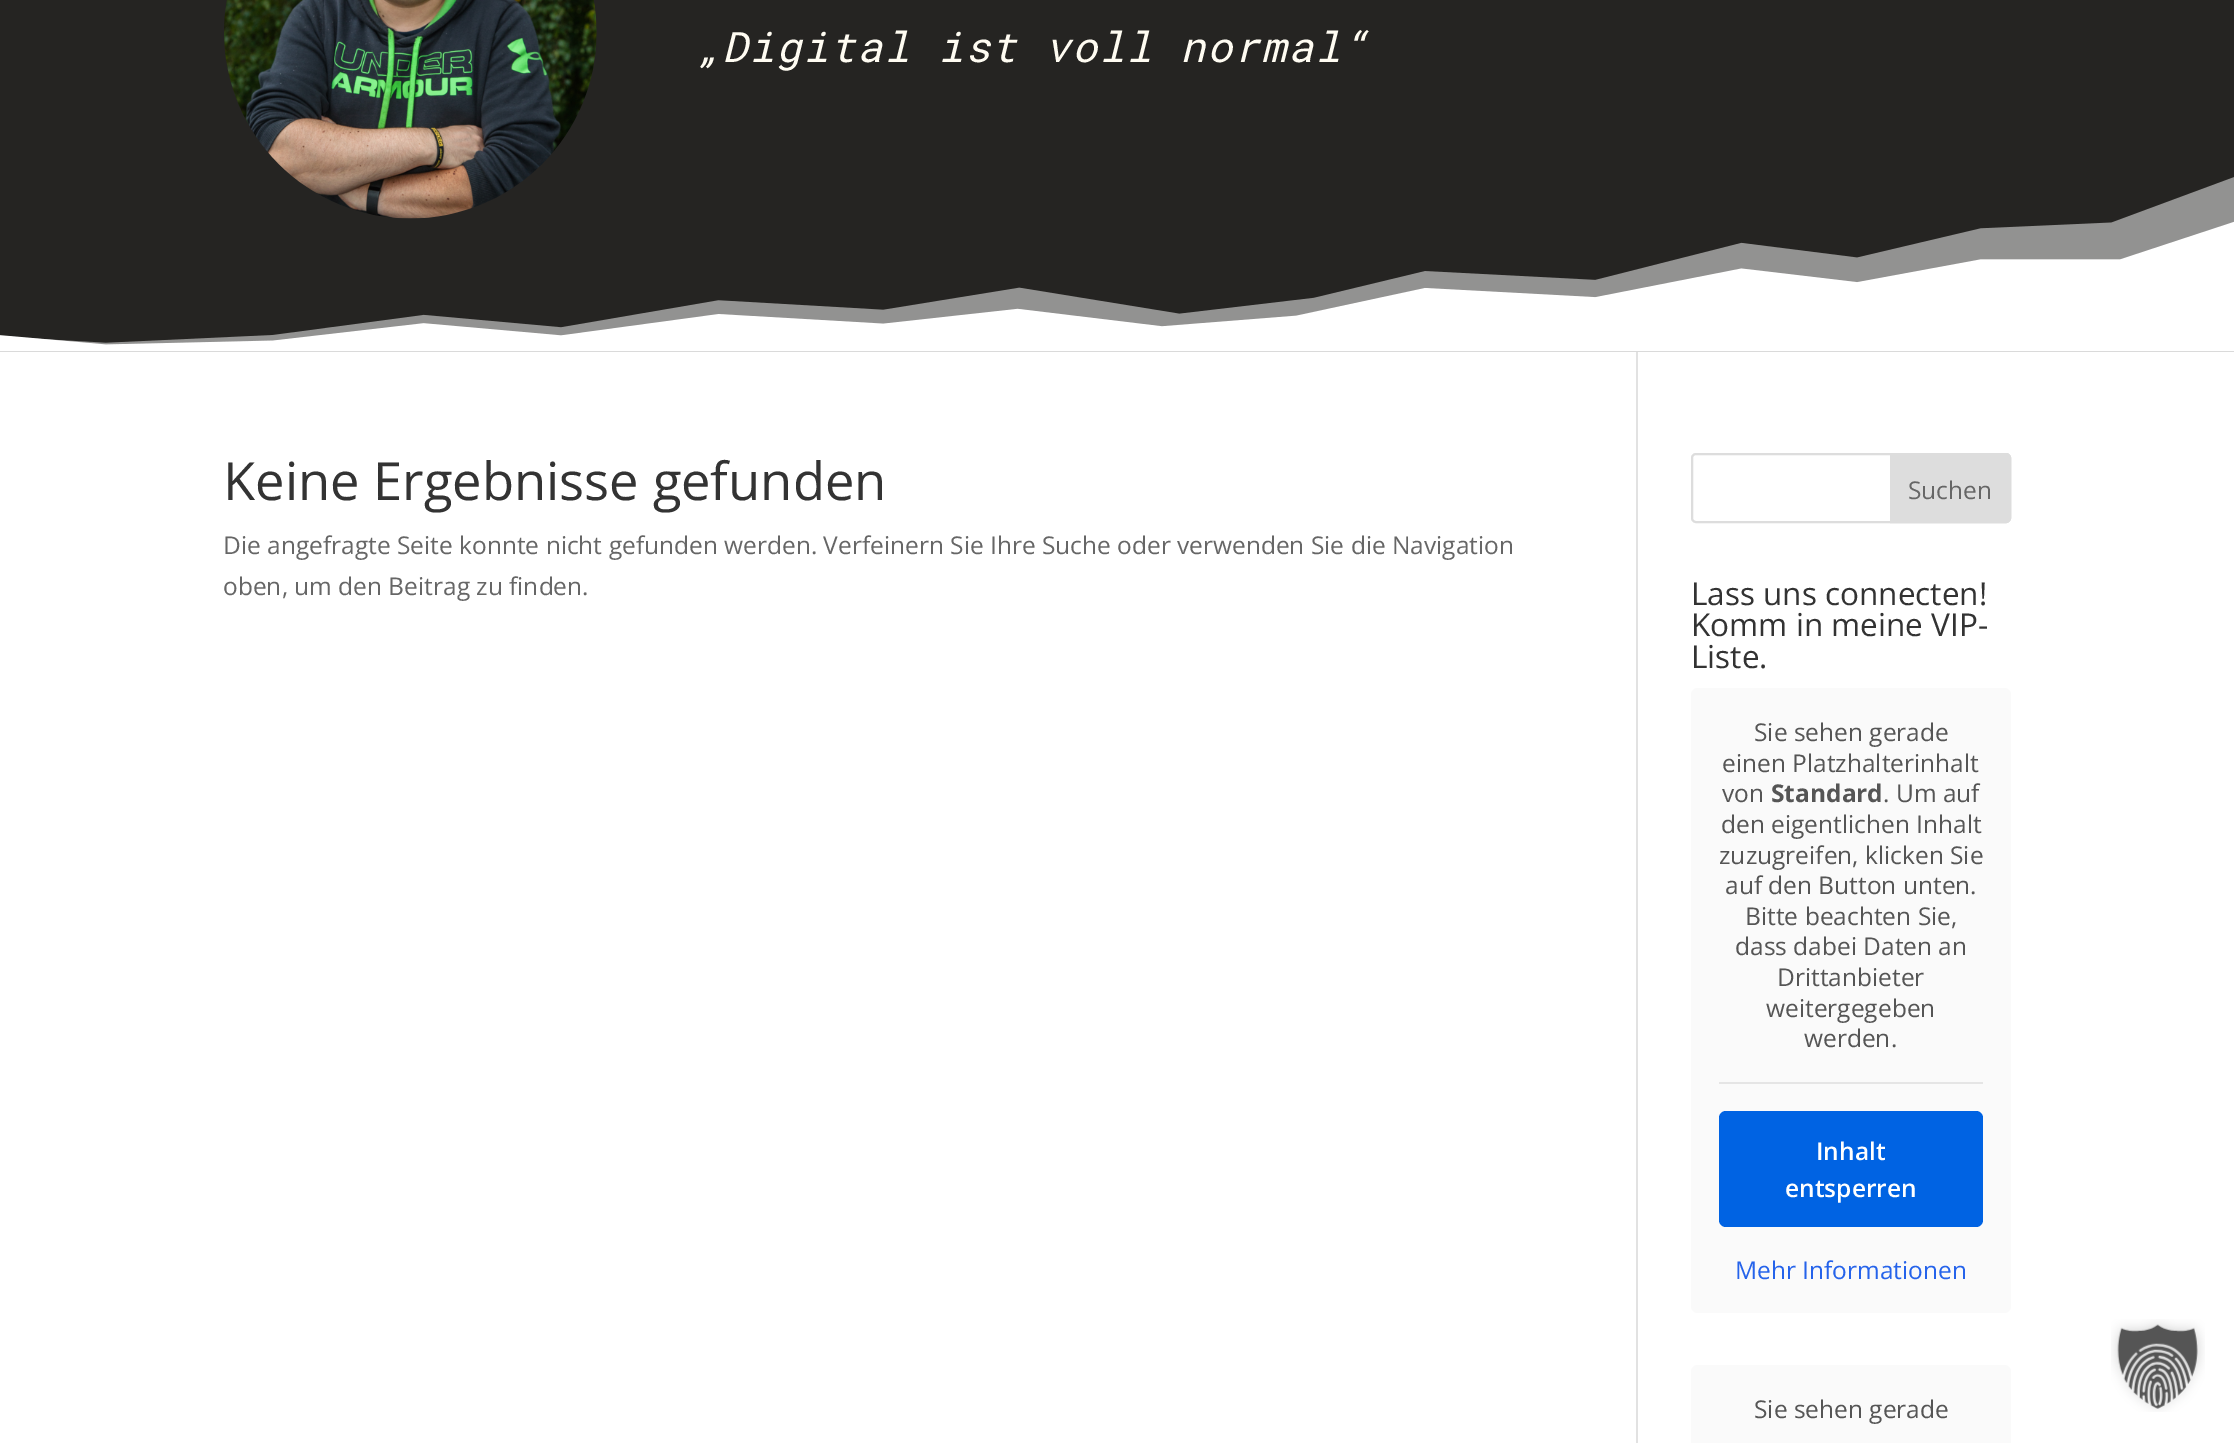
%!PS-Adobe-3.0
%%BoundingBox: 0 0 2234 1443
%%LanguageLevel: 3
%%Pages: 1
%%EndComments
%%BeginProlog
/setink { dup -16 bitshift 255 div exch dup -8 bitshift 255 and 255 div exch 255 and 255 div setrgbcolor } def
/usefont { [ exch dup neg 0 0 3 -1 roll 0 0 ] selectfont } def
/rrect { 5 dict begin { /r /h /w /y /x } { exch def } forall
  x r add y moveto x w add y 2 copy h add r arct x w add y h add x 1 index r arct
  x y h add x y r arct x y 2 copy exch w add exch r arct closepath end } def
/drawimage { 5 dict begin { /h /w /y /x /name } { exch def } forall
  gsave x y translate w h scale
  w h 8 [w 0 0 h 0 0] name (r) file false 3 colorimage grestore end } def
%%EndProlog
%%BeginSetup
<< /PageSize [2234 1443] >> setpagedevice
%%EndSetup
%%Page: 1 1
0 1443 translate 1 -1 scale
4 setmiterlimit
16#FFFFFF setink
0 0 2234 1443 rectfill
16#252422 setink
0 0 2234 352 rectfill
(img2.raw) 0 177 2234 175 drawimage
(img1.raw) 224 0 373 219 drawimage
/RobotoMono-Italic 42 usefont
16#FFFCF2 setink
695 62 moveto 1.75 0 („Digital ist voll normal“) ashow
16#E2E2E2 setink
1636 352 2 1091 rectfill
/OpenSans-Regular 52.5 usefont
16#333333 setink
223 500 moveto (Keine Ergebnisse gefunden) show
/OpenSans-Regular 24.5 usefont
16#666666 setink
223 554 moveto (Die angefragte Seite konnte nicht gefunden werden. Verfeinern Sie Ihre Suche oder verwenden Sie die Navigation) show
223 595 moveto (oben, um den Beitrag zu finden.) show
16#DDDDDD setink
2 setlinewidth
1692 454 318 68 4 rrect stroke
1891 454 moveto 2006 454 lineto 2008 454 2010 456 2010 458 curveto 2010 518 lineto 2010 520 2008 522 2006 522 curveto 1891 522 lineto closepath gsave fill grestore
stroke
16#666666 setink
1908 499 moveto (Suchen) show
/OpenSans-Regular 31.5 usefont
16#333333 setink
[
    [(Lass uns connecten!) 1691 605]
    [(Komm in meine VIP-) 1691 636]
    [(Liste.) 1691 668]
] { aload pop moveto show } forall
16#FAFAFA setink
1691 688 320 625 7 rrect fill
16#E5E5E5 setink
1719 1082 264 2 rectfill
/OpenSans-Regular 24.5 usefont
16#555555 setink
[
    [(Sie sehen gerade) 1754 741]
    [(einen Platzhalterinhalt) 1722 772]
    [(von) 1722 802]
] { aload pop moveto show } forall
/OpenSans-Bold 24.5 usefont
1771 802 moveto (Standard) show
/OpenSans-Regular 24.5 usefont
[
    [(. Um auf) 1883 802]
    [(den eigentlichen Inhalt) 1721 833]
    [(zuzugreifen, klicken Sie) 1719 864]
    [(auf den Button unten.) 1725 894]
    [(Bitte beachten Sie,) 1745 925]
    [(dass dabei Daten an) 1735 955]
    [(Drittanbieter) 1777 986]
    [(weitergegeben) 1766 1017]
    [(werden.) 1804 1047]
] { aload pop moveto show } forall
16#0063E3 setink
1719 1111 264 116 7 rrect fill
/OpenSans-SemiBold 24.5 usefont
16#FFFFFF setink
1816 1160 moveto (Inhalt) show
1785 1197 moveto (entsperren) show
/OpenSans-Regular 24.5 usefont
16#2563EB setink
1735 1279 moveto (Mehr Informationen) show
16#FAFAFA setink
1691 1365 320 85 7 rrect fill
16#555555 setink
1754 1418 moveto (Sie sehen gerade) show
(img3.raw) 2111 1319 94 93 drawimage
showpage
%%EOF
